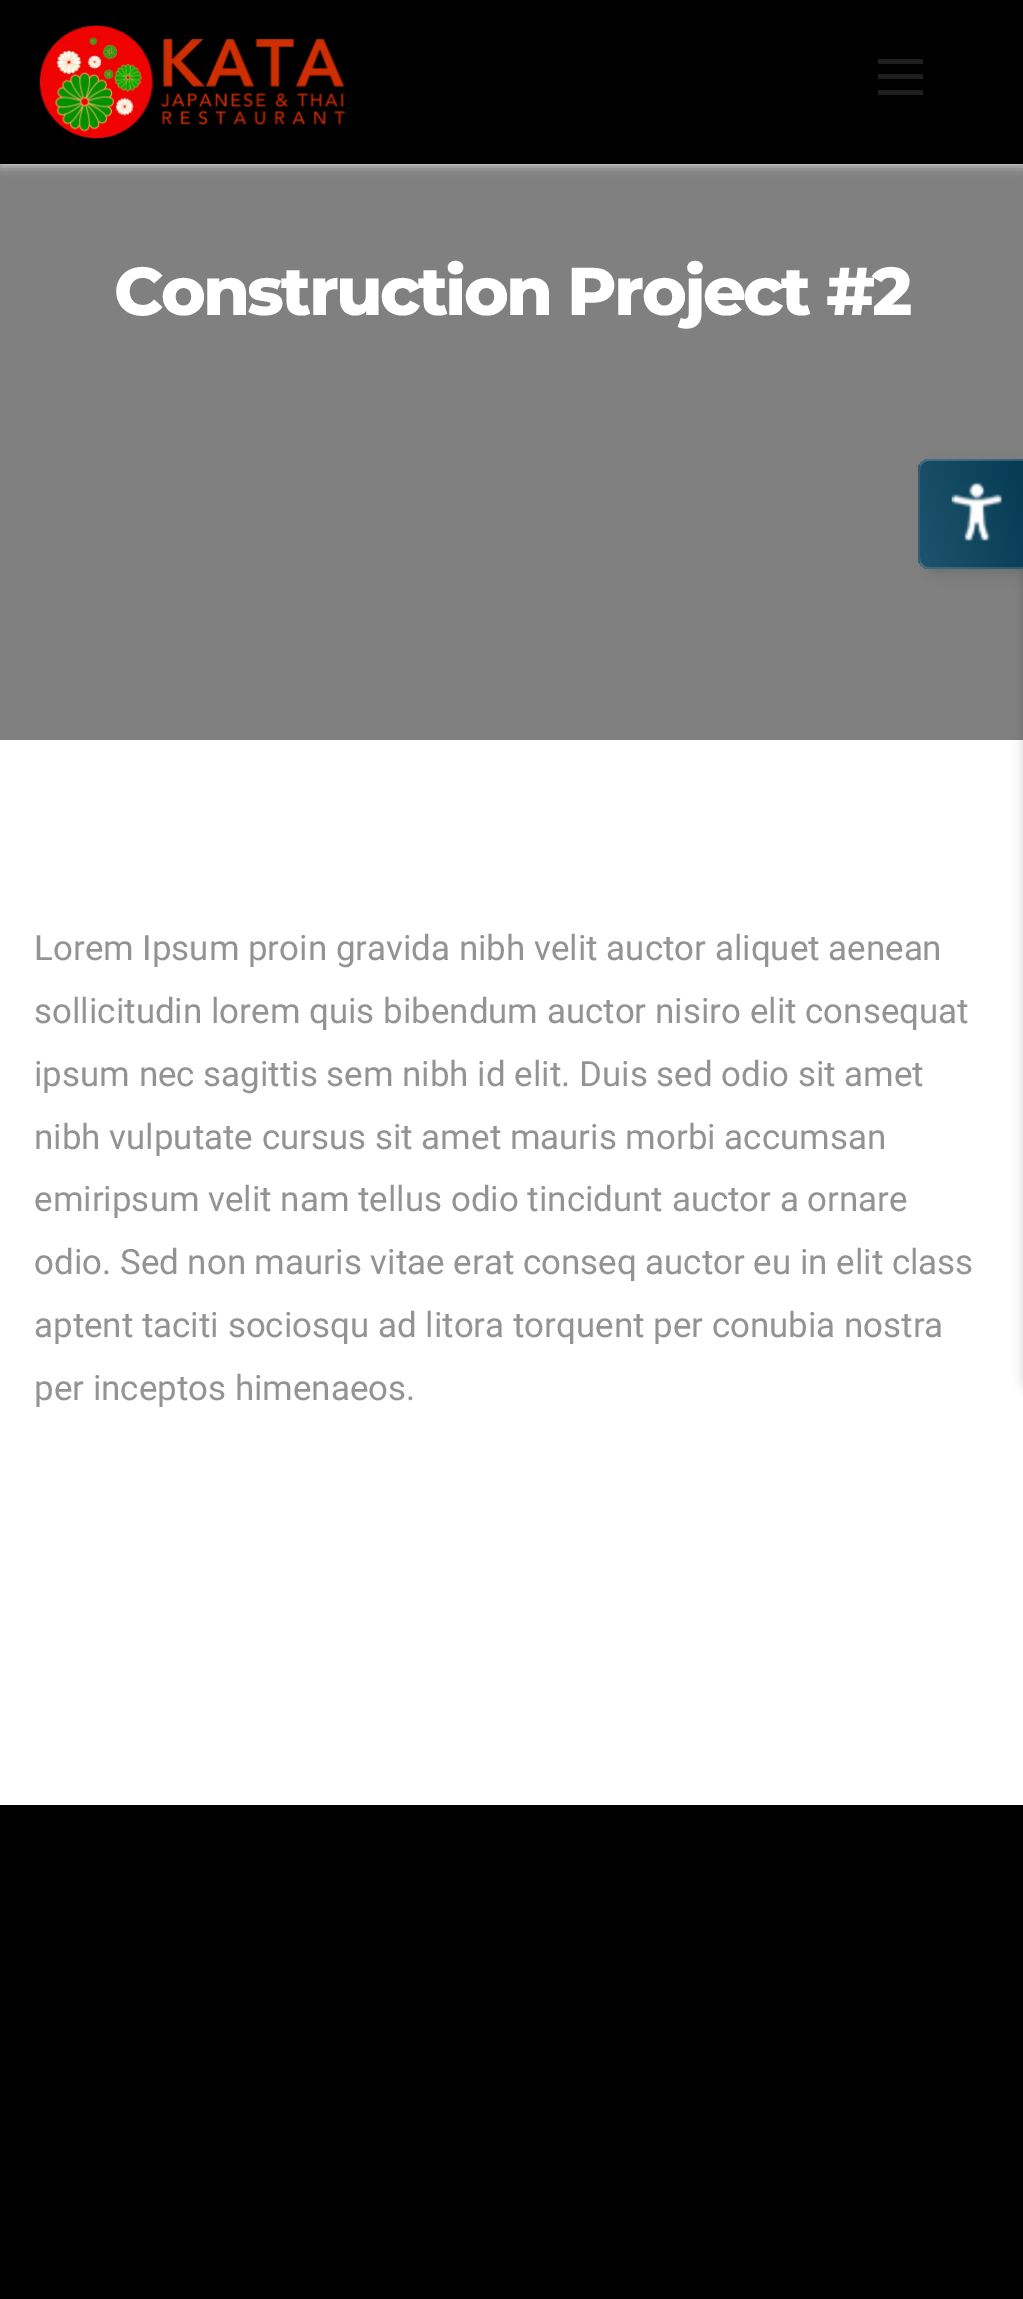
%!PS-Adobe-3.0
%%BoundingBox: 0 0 1023 2299
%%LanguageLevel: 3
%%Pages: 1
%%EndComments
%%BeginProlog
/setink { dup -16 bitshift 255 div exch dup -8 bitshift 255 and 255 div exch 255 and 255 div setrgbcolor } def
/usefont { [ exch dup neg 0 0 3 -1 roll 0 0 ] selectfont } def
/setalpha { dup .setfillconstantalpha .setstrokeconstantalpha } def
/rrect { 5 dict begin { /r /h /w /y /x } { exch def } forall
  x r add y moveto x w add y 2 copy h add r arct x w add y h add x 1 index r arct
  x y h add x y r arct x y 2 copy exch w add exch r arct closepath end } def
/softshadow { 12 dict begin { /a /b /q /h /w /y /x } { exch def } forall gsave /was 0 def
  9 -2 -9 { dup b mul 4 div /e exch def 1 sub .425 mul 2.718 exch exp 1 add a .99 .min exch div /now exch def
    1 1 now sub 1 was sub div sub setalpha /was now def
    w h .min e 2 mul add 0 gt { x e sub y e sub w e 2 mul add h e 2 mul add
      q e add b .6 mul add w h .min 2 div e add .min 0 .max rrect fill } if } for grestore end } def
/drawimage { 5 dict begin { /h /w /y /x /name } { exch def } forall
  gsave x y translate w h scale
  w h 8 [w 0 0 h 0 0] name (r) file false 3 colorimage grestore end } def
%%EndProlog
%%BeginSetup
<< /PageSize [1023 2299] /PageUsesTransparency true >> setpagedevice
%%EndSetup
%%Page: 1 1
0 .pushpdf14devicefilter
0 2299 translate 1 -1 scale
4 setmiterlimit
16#FFFFFF setink
0 0 1023 2299 rectfill
16#808080 setink
0 164 1023 576 rectfill
16#EEEEEE setink
0 0 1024 164 0 5.5 1 softshadow
16#000000 setink
0 0 1023 164 rectfill
(img1.raw) 39 25 307 114 drawimage
[
    [878 74 45 5 16#1F1F1F]
    [878 59 45 5 16#1F1F1F]
    [878 90 45 5 16#1F1F1F]
] { aload pop setink rectfill } forall
/Montserrat-ExtraBold 67.5 usefont
16#FFFFFF setink
114 315 moveto -2.7 0 (Construction Project #2) ashow
/Roboto-Regular 34.9 usefont
16#939393 setink
[
    [(Lorem Ipsum proin gravida nibh velit auctor aliquet aenean) 34 960]
    [(sollicitudin lorem quis bibendum auctor nisiro elit consequat) 34 1023]
    [(ipsum nec sagittis sem nibh id elit. Duis sed odio sit amet) 34 1086]
    [(nibh vulputate cursus sit amet mauris morbi accumsan) 34 1149]
    [(emiripsum velit nam tellus odio tincidunt auctor a ornare) 34 1211]
    [(odio. Sed non mauris vitae erat conseq auctor eu in elit class) 34 1274]
    [(aptent taciti sociosqu ad litora torquent per conubia nostra) 34 1337]
    [(per inceptos himenaeos.) 34 1400]
] { aload pop moveto show } forall
16#000000 setink
925 464 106 110 11 5.5 0.14 softshadow
16#000101 setink
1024 470 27 921 11 5.5 0.2 softshadow
16#095A81 setink
929 459 moveto 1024 459 lineto 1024 569 lineto 929 569 lineto 923 569 918 564 918 558 curveto 918 470 lineto 918 464 923 459 929 459 curveto closepath fill
gsave
929 459 moveto 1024 459 lineto 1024 569 lineto 929 569 lineto 923 569 918 564 918 558 curveto 918 470 lineto 918 464 923 459 929 459 curveto closepath clip newpath
0.35 setalpha
gsave 920 459 moveto 1023 459 lineto 1023 461 lineto 920 461 lineto closepath clip newpath
<< /ShadingType 2 /ColorSpace /DeviceRGB /Coords [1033 392 911 425] /Extend [true true] /Function << /FunctionType 3 /Domain [0 1] /Functions [<< /FunctionType 2 /Domain [0 1] /C0 [0 0 0] /C1 [0 0 0] /N 1 >> << /FunctionType 2 /Domain [0 1] /C0 [0 0 0] /C1 [0.263 0.263 0.263] /N 1 >> << /FunctionType 2 /Domain [0 1] /C0 [0.263 0.263 0.263] /C1 [0.263 0.263 0.263] /N 1 >>] /Bounds [0.01 0.98] /Encode [0 1 0 1 0 1] >> >> shfill grestore
gsave 918 461 moveto 920 461 lineto 920 567 lineto 918 567 lineto closepath clip newpath
<< /ShadingType 2 /ColorSpace /DeviceRGB /Coords [930 498 807 530] /Extend [true true] /Function << /FunctionType 3 /Domain [0 1] /Functions [<< /FunctionType 2 /Domain [0 1] /C0 [0 0 0] /C1 [0 0 0] /N 1 >> << /FunctionType 2 /Domain [0 1] /C0 [0 0 0] /C1 [0.263 0.263 0.263] /N 1 >> << /FunctionType 2 /Domain [0 1] /C0 [0.263 0.263 0.263] /C1 [0.263 0.263 0.263] /N 1 >>] /Bounds [0.01 0.98] /Encode [0 1 0 1 0 1] >> >> shfill grestore
gsave 920 461 moveto 1023 461 lineto 1023 567 lineto 920 567 lineto closepath clip newpath
<< /ShadingType 2 /ColorSpace /DeviceRGB /Coords [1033 498 911 530] /Extend [true true] /Function << /FunctionType 3 /Domain [0 1] /Functions [<< /FunctionType 2 /Domain [0 1] /C0 [0 0 0] /C1 [0 0 0] /N 1 >> << /FunctionType 2 /Domain [0 1] /C0 [0 0 0] /C1 [0.263 0.263 0.263] /N 1 >> << /FunctionType 2 /Domain [0 1] /C0 [0.263 0.263 0.263] /C1 [0.263 0.263 0.263] /N 1 >>] /Bounds [0.01 0.98] /Encode [0 1 0 1 0 1] >> >> shfill grestore
gsave 920 567 moveto 1023 567 lineto 1023 569 lineto 920 569 lineto closepath clip newpath
<< /ShadingType 2 /ColorSpace /DeviceRGB /Coords [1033 604 911 636] /Extend [true true] /Function << /FunctionType 3 /Domain [0 1] /Functions [<< /FunctionType 2 /Domain [0 1] /C0 [0 0 0] /C1 [0 0 0] /N 1 >> << /FunctionType 2 /Domain [0 1] /C0 [0 0 0] /C1 [0.263 0.263 0.263] /N 1 >> << /FunctionType 2 /Domain [0 1] /C0 [0.263 0.263 0.263] /C1 [0.263 0.263 0.263] /N 1 >>] /Bounds [0.01 0.98] /Encode [0 1 0 1 0 1] >> >> shfill grestore
grestore
0.17 setalpha
16#FFFFFF setink
929 459 moveto 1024 459 lineto 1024 569 lineto 929 569 lineto 923 569 918 564 918 558 curveto 918 470 lineto 918 464 923 459 929 459 curveto closepath 929 461 moveto 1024 461 lineto 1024 567 lineto 929 567 lineto 924 567 920 563 920 558 curveto 920 470 lineto 920 465 924 461 929 461 curveto closepath eofill
1 setalpha
(img2.raw) 951 482 51 60 drawimage
16#000000 setink
0 1805 1023 494 rectfill
.poppdf14devicefilter showpage
%%EOF
